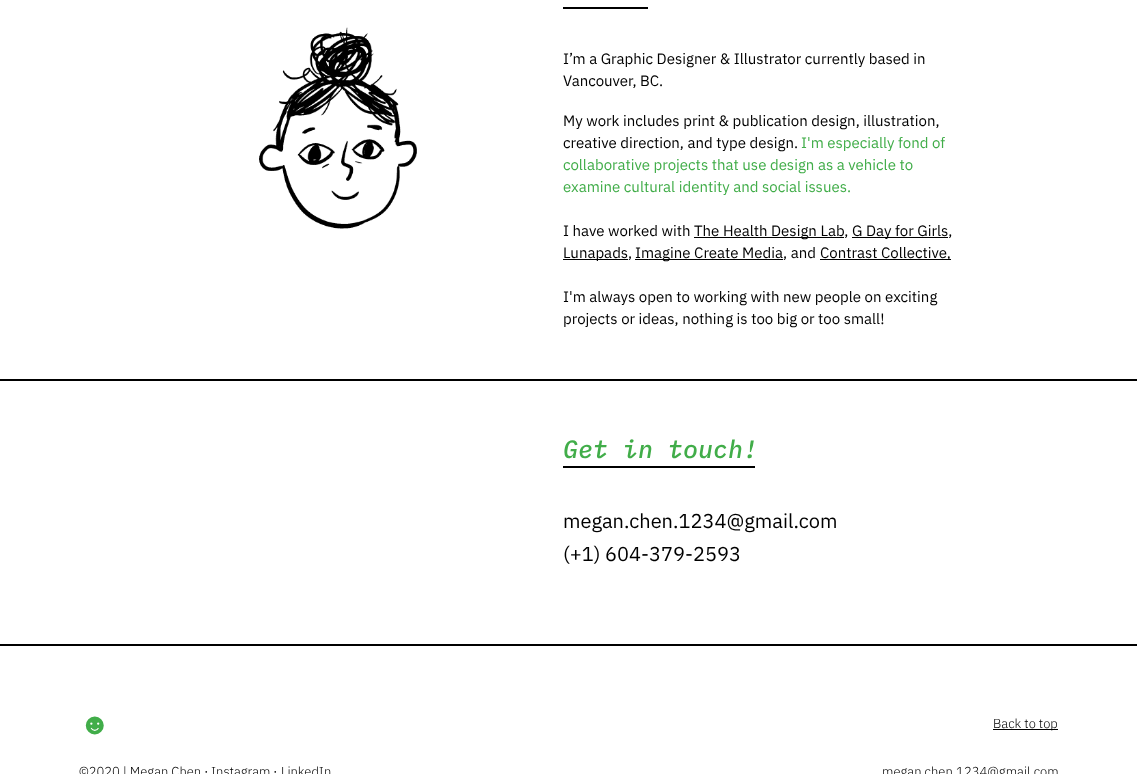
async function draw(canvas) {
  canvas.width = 1137
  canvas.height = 774
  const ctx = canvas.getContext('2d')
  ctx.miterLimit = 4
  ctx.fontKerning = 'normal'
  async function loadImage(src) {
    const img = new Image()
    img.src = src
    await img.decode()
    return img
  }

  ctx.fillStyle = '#fff'
  ctx.fillRect(0, 0, 1137, 774)
  ctx.fillStyle = '#000'
  ctx.fillRect(563, 7, 85, 2)
  ctx.drawImage(await loadImage('image0.png'), 259, 27, 158, 202)
  ctx.font = '15px IBM Plex Sans'
  ctx.fillText('I’m a Graphic Designer & Illustrator currently based in', 563, 64)
  ctx.fillText('Vancouver, BC.', 563, 86)
  ctx.fillText('My work includes print & publication design, illustration,', 563, 126)
  ctx.fillText('creative direction, and type design.', 563, 148)
  ctx.fillStyle = '#41ad49'
  ctx.fillText('I\'m especially fond of', 801, 148)
  ctx.fillText('collaborative projects that use design as a vehicle to', 563, 170)
  ctx.fillText('examine cultural identity and social issues.', 563, 192)
  ctx.fillStyle = '#000'
  ctx.fillText('I have worked with', 563, 236)
  ctx.fillRect(694, 237, 150, 1)
  ctx.fillText('The Health Design Lab,', 694, 236)
  ctx.fillRect(852, 237, 96, 1)
  ctx.fillText('G Day for Girls,', 852, 236)
  ctx.fillRect(563, 259, 65, 1)
  ctx.fillText('Lunapads,', 563, 258)
  ctx.fillRect(635, 259, 148, 1)
  ctx.fillText('Imagine Create Media, and', 635, 258)
  ctx.fillRect(820, 259, 131, 1)
  ctx.fillText('Contrast Collective,', 820, 258)
  ctx.fillText('I\'m always open to working with new people on exciting', 563, 302)
  ctx.fillText('projects or ideas, nothing is too big or too small!', 563, 324)
  ctx.fillRect(0, 379, 1137, 2)
  ctx.font = 'italic 500 25px IBM Plex Mono'
  ctx.fillStyle = '#41ad49'
  ctx.fillText('Get in touch!', 563, 458)
  ctx.fillStyle = '#000'
  ctx.fillRect(563, 466, 192, 2)
  ctx.font = '20px IBM Plex Sans'
  ctx.fillText('megan.chen.1234@gmail.com', 563, 528)
  ctx.fillText('(+1) 604-379-2593', 563, 561)
  ctx.fillRect(0, 644, 1137, 2)
  ctx.font = '30px Liberation Serif'
  ctx.fillStyle = '#41ad49'
  ctx.fillText('☻', 79, 734)
  ctx.fillStyle = '#000'
  ctx.fillRect(993, 729, 65, 1)
  ctx.font = '300 13px IBM Plex Sans'
  ctx.fillText('Back to top', 993, 728)
  ctx.fillText('©2020 | Megan Chen', 79, 776)
  ctx.font = 'bold 13px IBM Plex Sans'
  ctx.fillText('·', 204, 776)
  ctx.font = '300 13px IBM Plex Sans'
  ctx.fillText('Instagram', 211, 776)
  ctx.font = 'bold 13px IBM Plex Sans'
  ctx.fillText('·', 273, 776)
  ctx.font = '300 13px IBM Plex Sans'
  ctx.fillText('LinkedIn', 281, 776)
  ctx.fillText('megan.chen.1234@gmail.com', 882, 776)
}

draw(document.querySelector('canvas'))
